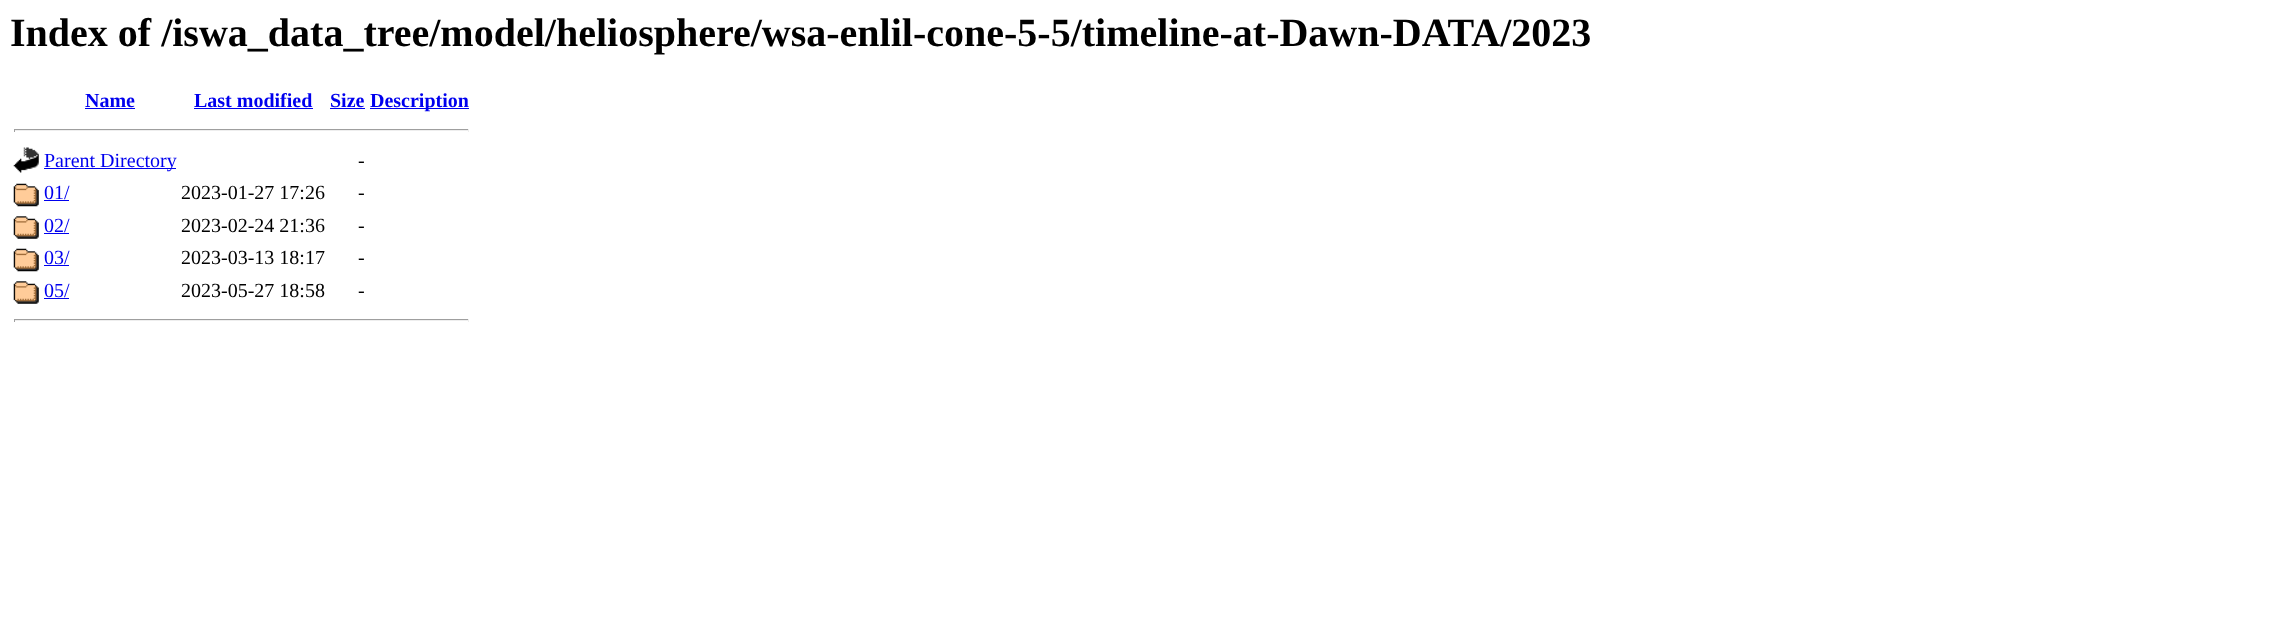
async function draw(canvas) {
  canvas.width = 2291
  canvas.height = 630
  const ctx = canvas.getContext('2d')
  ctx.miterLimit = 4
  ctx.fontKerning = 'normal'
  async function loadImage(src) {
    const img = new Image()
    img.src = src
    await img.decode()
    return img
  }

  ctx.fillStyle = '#fff'
  ctx.fillRect(0, 0, 2291, 630)
  ctx.font = 'bold 40px Liberation Serif'
  ctx.fillStyle = '#000'
  ctx.fillText('Index of /iswa_data_tree/model/heliosphere/wsa-enlil-cone-5-5/timeline-at-Dawn-DATA/2023', 10, 46)
  ctx.font = 'bold 20px Liberation Serif'
  ctx.fillStyle = '#00e'
  ctx.fillText('Name', 85, 107)
  ctx.fillRect(85, 108, 50, 1)
  ctx.fillText('Last modified', 194, 107)
  ctx.fillRect(194, 108, 119, 1)
  ctx.fillText('Size', 330, 107)
  ctx.fillRect(330, 108, 35, 1)
  ctx.fillRect(370, 108, 99, 1)
  ctx.fillText('Description', 370, 107)
  ctx.fillStyle = '#9f9f9f'
  ctx.fillRect(14, 129, 455, 1)
  ctx.fillStyle = '#eee'
  ctx.fillRect(468, 129, 1, 3)
  ctx.fillRect(14, 130, 455, 1)
  ctx.fillStyle = '#9f9f9f'
  ctx.fillRect(14, 129, 1, 3)
  ctx.drawImage(await loadImage('image0.png'), 13, 147, 26, 26)
  ctx.fillStyle = '#00e'
  ctx.fillRect(44, 168, 132, 1)
  ctx.font = '20px Liberation Serif'
  ctx.fillText('Parent Directory', 44, 167)
  ctx.fillStyle = '#000'
  ctx.fillText('-', 358, 167)
  ctx.drawImage(await loadImage('image1.png'), 13, 183, 26, 24)
  ctx.fillStyle = '#00e'
  ctx.fillText('01/', 44, 199)
  ctx.fillRect(44, 200, 25, 1)
  ctx.fillStyle = '#000'
  ctx.fillText('2023-01-27 17:26', 181, 199)
  ctx.fillText('-', 358, 199)
  ctx.drawImage(await loadImage('image2.png'), 13, 216, 26, 23)
  ctx.fillStyle = '#00e'
  ctx.fillText('02/', 44, 232)
  ctx.fillRect(44, 233, 25, 1)
  ctx.fillStyle = '#000'
  ctx.fillText('2023-02-24 21:36', 181, 232)
  ctx.fillText('-', 358, 232)
  ctx.drawImage(await loadImage('image1.png'), 13, 248, 26, 24)
  ctx.fillStyle = '#00e'
  ctx.fillText('03/', 44, 264)
  ctx.fillRect(44, 265, 25, 1)
  ctx.fillStyle = '#000'
  ctx.fillText('2023-03-13 18:17', 181, 264)
  ctx.fillText('-', 358, 264)
  ctx.drawImage(await loadImage('image3.png'), 13, 281, 26, 23)
  ctx.fillStyle = '#00e'
  ctx.fillText('05/', 44, 297)
  ctx.fillRect(44, 298, 25, 1)
  ctx.fillStyle = '#000'
  ctx.fillText('2023-05-27 18:58', 181, 297)
  ctx.fillText('-', 358, 297)
  ctx.fillStyle = '#9f9f9f'
  ctx.fillRect(14, 319, 455, 1)
  ctx.fillStyle = '#eee'
  ctx.fillRect(468, 319, 1, 3)
  ctx.fillRect(14, 320, 455, 1)
  ctx.fillStyle = '#9f9f9f'
  ctx.fillRect(14, 319, 1, 3)
}

draw(document.querySelector('canvas'))
